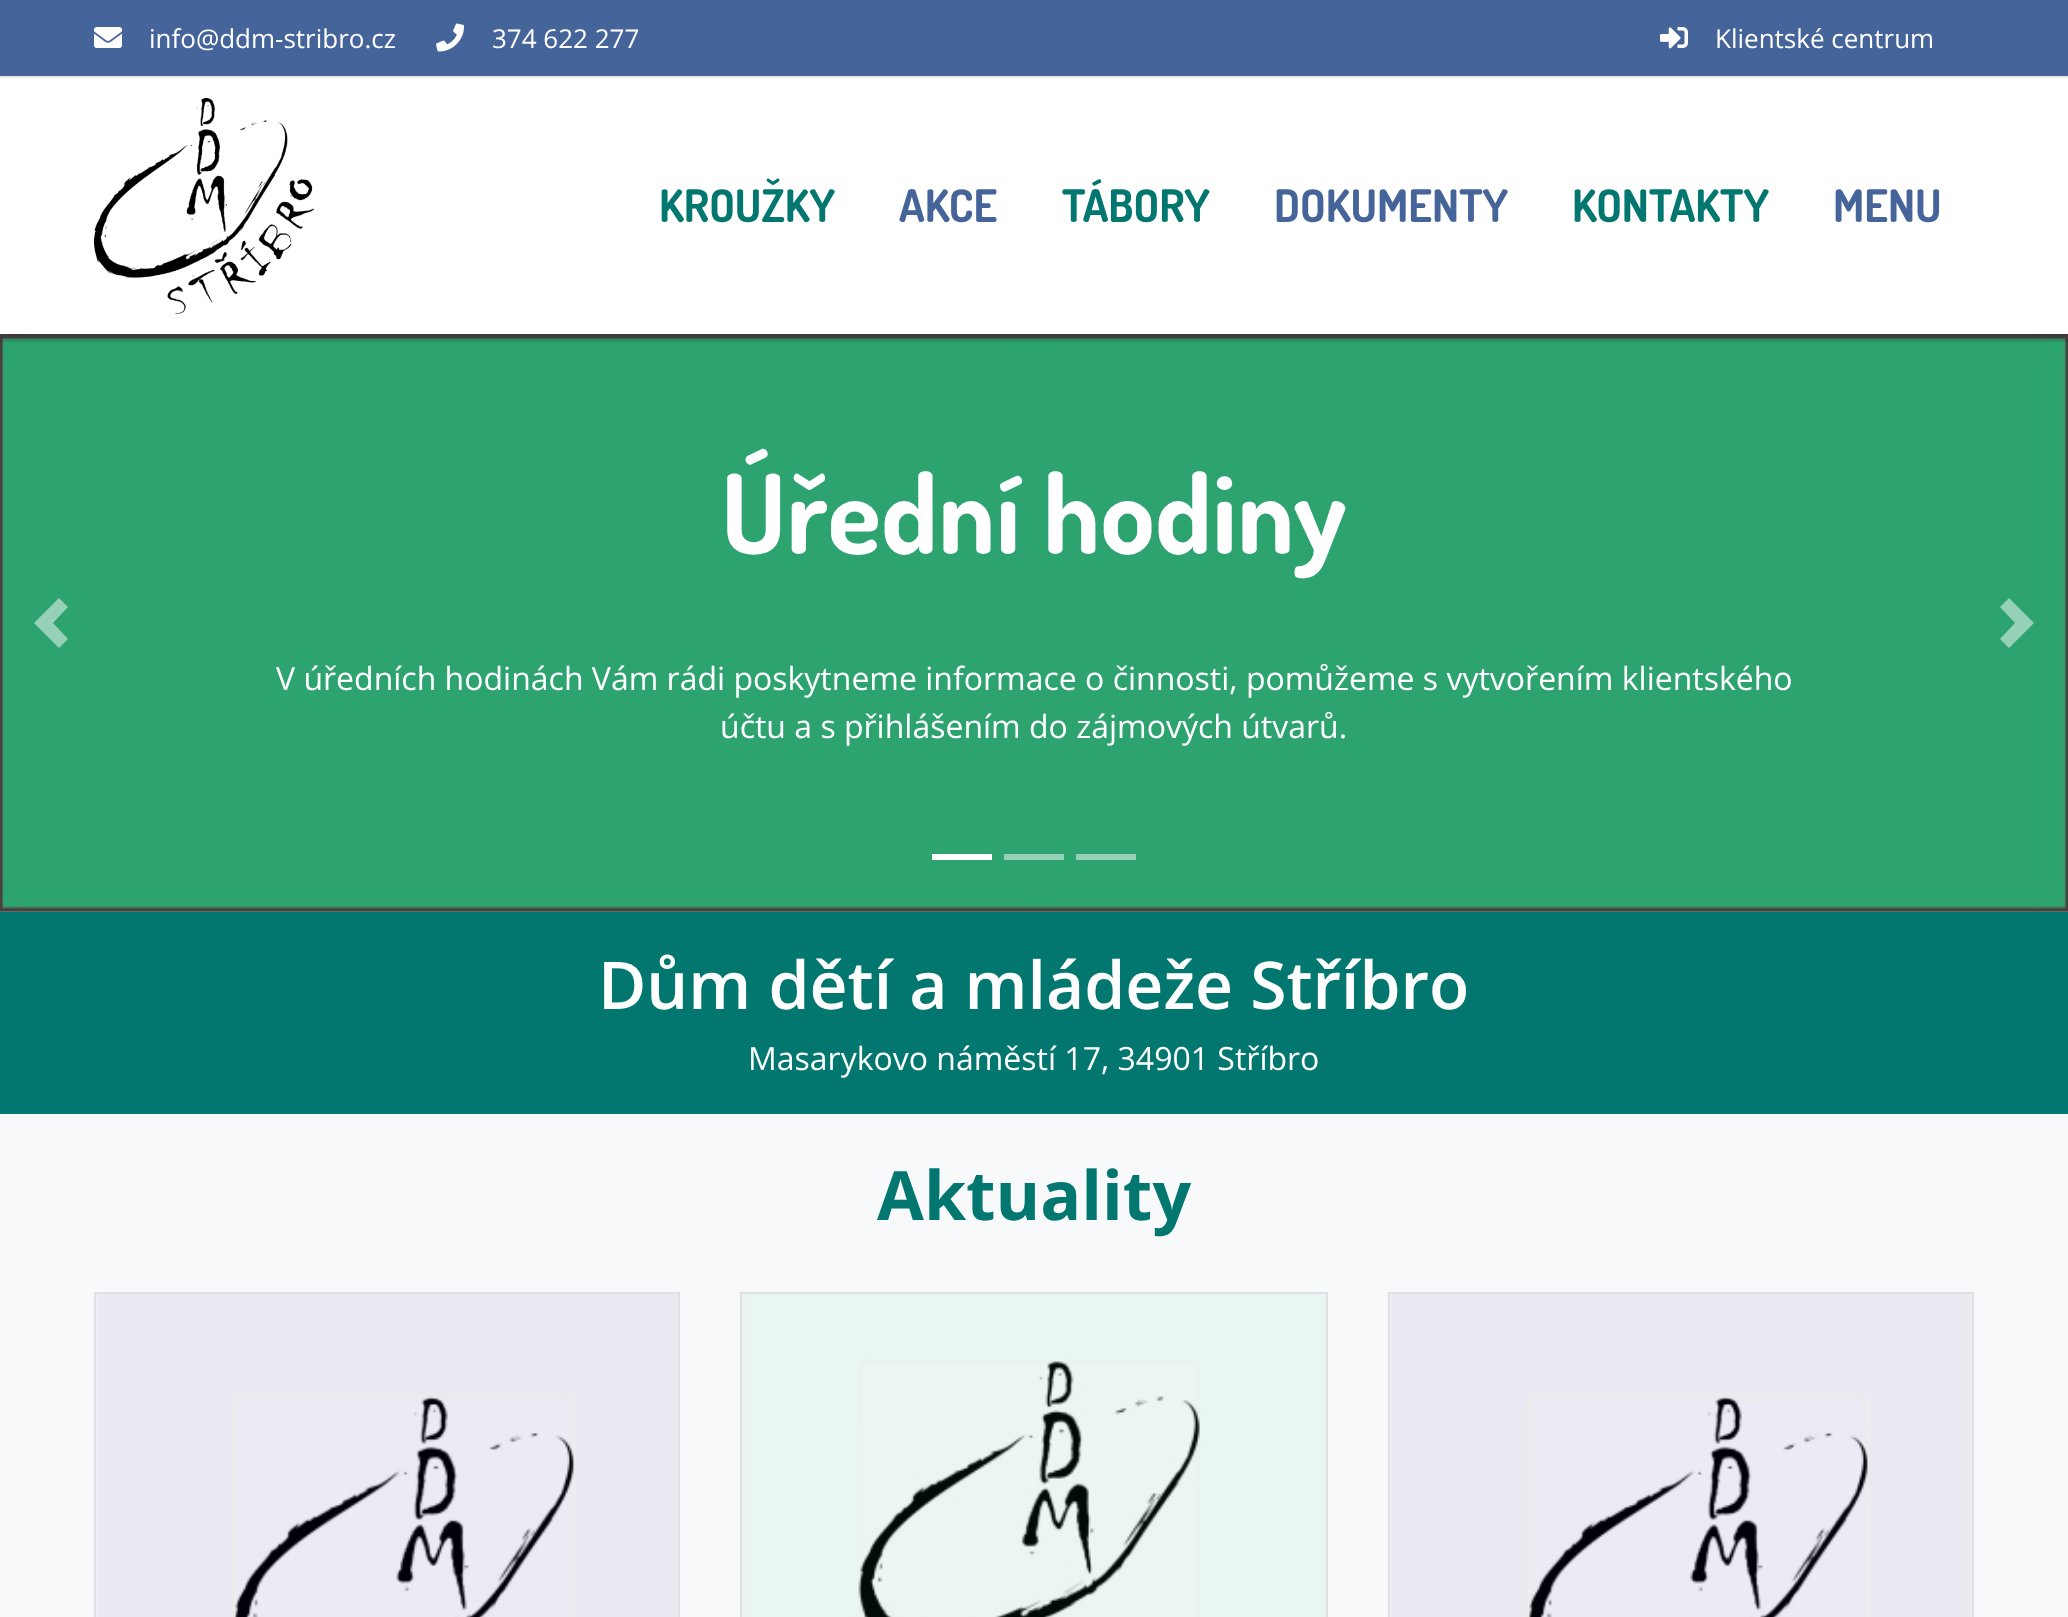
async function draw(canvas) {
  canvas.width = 2068
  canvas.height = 1617
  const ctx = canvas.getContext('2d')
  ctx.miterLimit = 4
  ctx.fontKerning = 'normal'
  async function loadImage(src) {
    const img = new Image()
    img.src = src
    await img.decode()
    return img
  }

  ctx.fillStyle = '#f8f9fa'
  ctx.fillRect(0, 0, 2068, 1617)
  ctx.fillStyle = '#45649a'
  ctx.fillRect(0, 0, 2068, 76)
  ctx.fillStyle = '#e7e7e7'
  ctx.fillRect(0, 76, 2068, 2)
  ctx.drawImage(await loadImage('image0.png'), 94, 27, 28, 21)
  ctx.font = '26px Open Sans'
  ctx.fillStyle = '#fff'
  ctx.fillText('info@ddm-stribro.cz', 149, 48)
  ctx.drawImage(await loadImage('image1.png'), 436, 23, 29, 29)
  ctx.fillText('374 622 277', 492, 48)
  ctx.drawImage(await loadImage('image2.png'), 1660, 27, 28, 22)
  ctx.fillText('Klientské centrum', 1715, 48)
  ctx.drawImage(await loadImage('image4.png'), 0, 334, 2068, 578)
  ctx.fillStyle = '#0000001a'
  ctx.fillRect(0, 334, 2068, 8)
  ctx.fillStyle = '#fff'
  ctx.fillRect(0, 78, 2068, 256)
  ctx.drawImage(await loadImage('image3.png'), 94, 98, 220, 216)
  ctx.font = 'bold 44.75px Dosis'
  ctx.fillStyle = '#017770'
  ctx.fillText('KROUŽKY', 659, 222)
  ctx.fillStyle = '#45649a'
  ctx.fillText('AKCE', 899, 222)
  ctx.fillStyle = '#017770'
  ctx.fillText('TÁBORY', 1062, 222)
  ctx.fillStyle = '#45649a'
  ctx.fillText('DOKUMENTY', 1274, 222)
  ctx.fillStyle = '#017770'
  ctx.fillText('KONTAKTY', 1572, 222)
  ctx.fillStyle = '#45649a'
  ctx.fillText('MENU', 1833, 222)
  ctx.fillStyle = '#96d1b7'
  ctx.beginPath()
  ctx.moveTo(59, 598)
  ctx.lineTo(34, 623)
  ctx.lineTo(59, 648)
  ctx.lineTo(68, 639)
  ctx.lineTo(53, 623)
  ctx.lineTo(68, 607)
  ctx.closePath()
  ctx.fill()
  ctx.font = 'bold 110px Dosis'
  ctx.fillStyle = '#fff'
  ctx.fillText('Úřední hodiny', 721, 554)
  ctx.font = '32px Open Sans'
  ctx.fillText('V úředních hodinách Vám rádi poskytneme informace o činnosti, pomůžeme s vytvořením klientského', 276, 690)
  ctx.fillText('účtu a s přihlášením do zájmových útvarů.', 720, 738)
  ctx.fillStyle = '#96d1b7'
  ctx.beginPath()
  ctx.moveTo(2009, 598)
  ctx.lineTo(2000, 607)
  ctx.lineTo(2015, 623)
  ctx.lineTo(2000, 639)
  ctx.lineTo(2009, 648)
  ctx.lineTo(2034, 623)
  ctx.closePath()
  ctx.fill()
  ctx.fillStyle = '#fff'
  ctx.fillRect(932, 854, 60, 6)
  ctx.fillStyle = '#96d1b7'
  ctx.fillRect(1004, 854, 60, 6)
  ctx.fillRect(1076, 854, 60, 6)
  ctx.fillStyle = '#017770'
  ctx.fillRect(0, 912, 2068, 202)
  ctx.font = '600 66px Open Sans'
  ctx.fillStyle = '#fff'
  ctx.fillText('Dům dětí a mládeže Stříbro', 598, 1009)
  ctx.font = '32px Open Sans'
  ctx.fillText('Masarykovo náměstí 17, 34901 Stříbro', 748, 1070)
  ctx.font = 'bold 68px Open Sans'
  ctx.fillStyle = '#017770'
  ctx.fillText('Aktuality', 877, 1220)
  ctx.strokeStyle = '#dee2e6'
  ctx.lineWidth = 2
  ctx.strokeRect(95, 1293, 584, 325)
  ctx.drawImage(await loadImage('image5.png'), 96, 1294, 582, 323)
  ctx.strokeRect(741, 1293, 586, 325)
  ctx.drawImage(await loadImage('image6.png'), 742, 1294, 584, 323)
  ctx.strokeRect(1389, 1293, 584, 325)
  ctx.drawImage(await loadImage('image5.png'), 1390, 1294, 582, 323)
}

draw(document.querySelector('canvas'))
